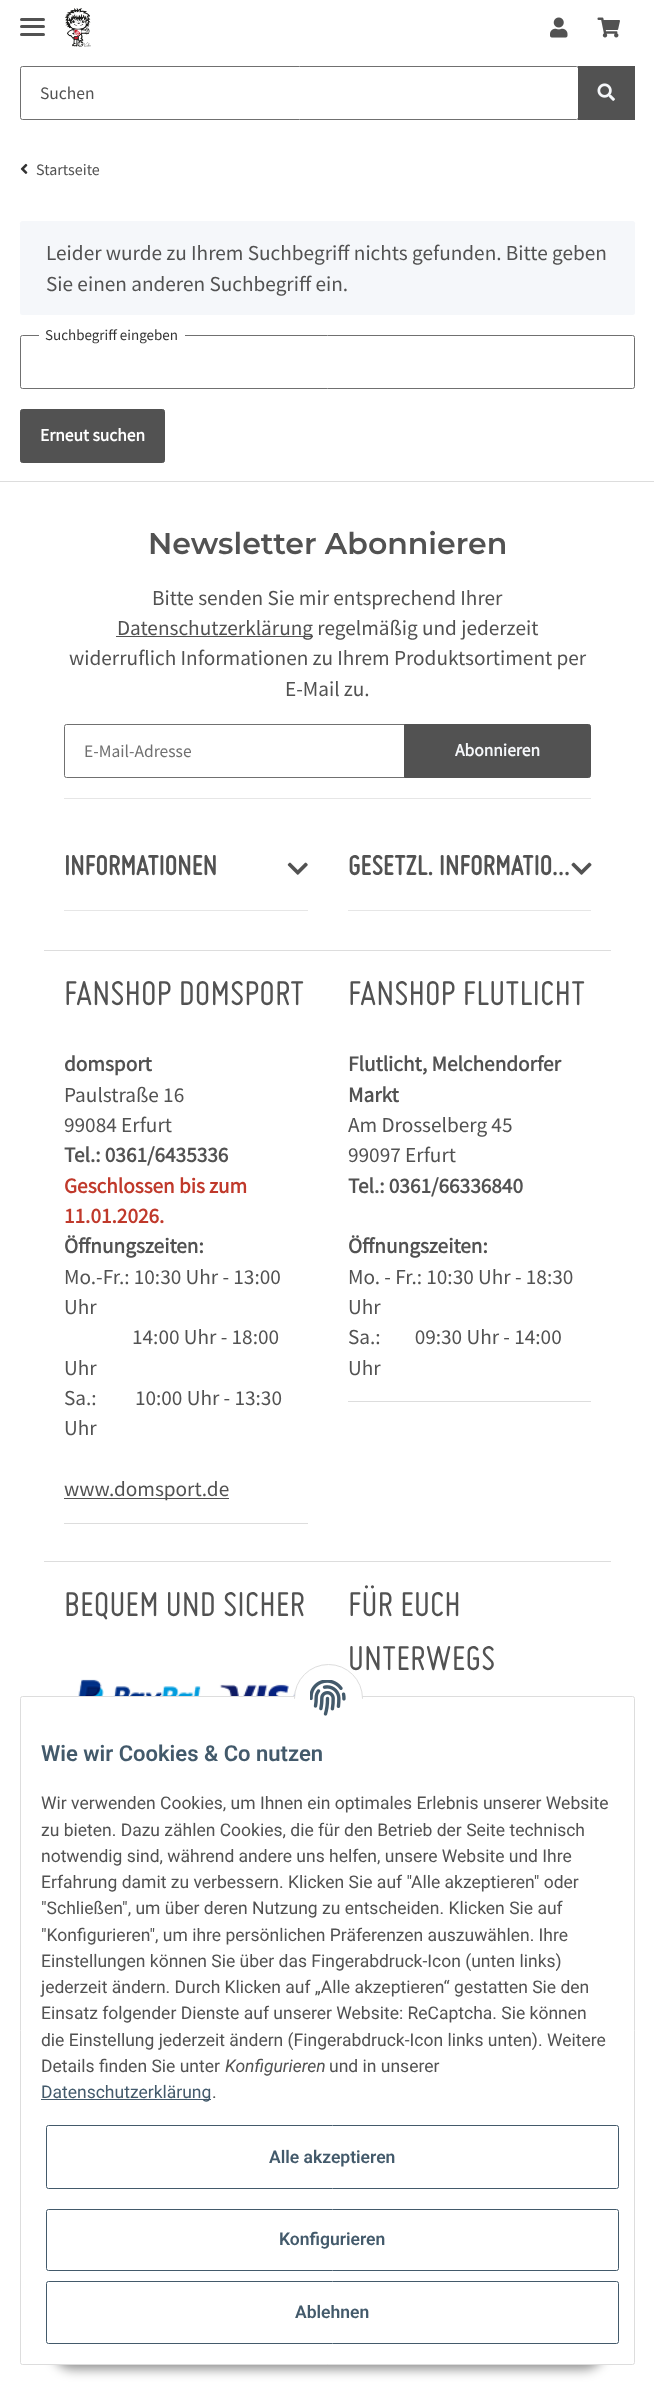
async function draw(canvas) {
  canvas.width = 654
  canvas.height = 2405
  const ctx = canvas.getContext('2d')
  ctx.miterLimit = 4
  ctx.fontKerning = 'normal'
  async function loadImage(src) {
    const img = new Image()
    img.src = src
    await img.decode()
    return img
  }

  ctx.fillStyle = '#fff'
  ctx.fillRect(0, 0, 654, 2405)
  ctx.fillStyle = '#525252'
  ctx.beginPath()
  ctx.roundRect(20, 25, 25, 3, 1.5)
  ctx.fill()
  ctx.beginPath()
  ctx.roundRect(20, 18, 25, 3, 1.5)
  ctx.fill()
  ctx.beginPath()
  ctx.roundRect(20, 33, 25, 3, 1.5)
  ctx.fill()
  ctx.drawImage(await loadImage('image0.png'), 65, 8, 26, 39)
  ctx.drawImage(await loadImage('image1.png'), 550, 17, 18, 21)
  ctx.drawImage(await loadImage('image2.png'), 597, 17, 23, 21)
  ctx.beginPath()
  ctx.roundRect(20.5, 66.5, 558, 53, 2)
  ctx.strokeStyle = '#707070'
  ctx.stroke()
  ctx.font = '17.5px Source Sans Pro'
  ctx.fillText('Suchen', 40, 99)
  ctx.fillRect(578, 66, 57, 54)
  ctx.drawImage(await loadImage('image3.png'), 597, 83, 18, 18)
  ctx.drawImage(await loadImage('image4.png'), 20, 163, 8, 11)
  ctx.font = '16px Source Sans Pro'
  ctx.fillText('Startseite', 36, 175)
  ctx.fillStyle = '#f5f7fa'
  ctx.beginPath()
  ctx.roundRect(20, 221, 615, 94, 2.5)
  ctx.fill()
  ctx.font = '21.25px Source Sans Pro'
  ctx.fillStyle = '#525252'
  ctx.fillText('Leider wurde zu Ihrem Suchbegriff nichts gefunden. Bitte geben', 46, 260)
  ctx.fillText('Sie einen anderen Suchbegriff ein.', 46, 291)
  ctx.beginPath()
  ctx.roundRect(20.5, 335.5, 614, 53, 2)
  ctx.stroke()
  ctx.fillStyle = '#fff'
  ctx.fillRect(39, 335, 146, 1)
  ctx.font = '15px Source Sans Pro'
  ctx.fillStyle = '#333'
  ctx.fillText('Suchbegriff eingeben', 45, 340)
  ctx.fillStyle = '#525252'
  ctx.beginPath()
  ctx.roundRect(20.5, 409.5, 144, 53, 2)
  ctx.fill()
  ctx.strokeStyle = '#525252'
  ctx.stroke()
  ctx.font = 'bold 17.5px Source Sans Pro'
  ctx.fillStyle = '#fff'
  ctx.fillText('Erneut suchen', 40, 441)
  ctx.fillStyle = '#ddd'
  ctx.fillRect(0, 481, 654, 1)
  ctx.font = '600 30px Montserrat'
  ctx.fillStyle = '#525252'
  ctx.fillText('Newsletter Abonnieren', 148, 554)
  ctx.font = '21.25px Source Sans Pro'
  ctx.fillText('Bitte senden Sie mir entsprechend Ihrer', 152, 605)
  ctx.fillRect(116, 636, 197, 1)
  ctx.fillText('Datenschutzerklärung regelmäßig und jederzeit', 117, 635)
  ctx.fillText('widerruflich Informationen zu Ihrem Produktsortiment per', 69, 665)
  ctx.fillText('E-Mail zu.', 285, 696)
  ctx.beginPath()
  ctx.roundRect(64.5, 724.5, 340, 53, [2, 0, 0, 2])
  ctx.strokeStyle = '#707070'
  ctx.stroke()
  ctx.font = '17.5px Source Sans Pro'
  ctx.fillStyle = '#707070'
  ctx.fillText('E-Mail-Adresse', 84, 757)
  ctx.fillStyle = '#525252'
  ctx.beginPath()
  ctx.roundRect(404.5, 724.5, 186, 53, [0, 2, 2, 0])
  ctx.fill()
  ctx.strokeStyle = '#525252'
  ctx.stroke()
  ctx.font = 'bold 17.5px Source Sans Pro'
  ctx.fillStyle = '#f5f7fa'
  ctx.fillText('Abonnieren', 455, 756)
  ctx.fillStyle = '#e6e6e6'
  ctx.fillRect(64, 798, 527, 1)
  ctx.fillStyle = '#ddd'
  ctx.fillRect(44, 950, 567, 1)
  ctx.font = 'bold 30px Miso'
  ctx.fillStyle = '#525252'
  ctx.fillText('INFORMATIONEN', 64, 875)
  ctx.drawImage(await loadImage('image5.png'), 287, 862, 21, 13)
  ctx.fillStyle = '#e6e6e6'
  ctx.fillRect(64, 910, 244, 1)
  ctx.fillStyle = '#525252'
  ctx.fillText('GESETZL. INFORMATIO…', 348, 875)
  ctx.drawImage(await loadImage('image6.png'), 571, 862, 21, 13)
  ctx.fillStyle = '#e6e6e6'
  ctx.fillRect(348, 910, 243, 1)
  ctx.fillStyle = '#ddd'
  ctx.fillRect(44, 1561, 567, 1)
  ctx.fillRect(64, 1523, 244, 1)
  ctx.font = '37.5px Miso'
  ctx.fillStyle = '#525252'
  ctx.fillText('FANSHOP DOMSPORT', 64, 1005)
  ctx.font = 'bold 21.25px Source Sans Pro'
  ctx.fillText('domsport', 64, 1071)
  ctx.font = '21.25px Source Sans Pro'
  ctx.fillText('Paulstraße 16', 64, 1102)
  ctx.fillText('99084 Erfurt', 64, 1132)
  ctx.font = 'bold 21.25px Source Sans Pro'
  ctx.fillText('Tel.: 0361/6435336', 64, 1162)
  ctx.fillStyle = '#c0392b'
  ctx.fillText('Geschlossen bis zum', 64, 1193)
  ctx.fillText('11.01.2026.', 64, 1223)
  ctx.fillStyle = '#525252'
  ctx.fillText('Öffnungszeiten:', 64, 1253)
  ctx.font = '21.25px Source Sans Pro'
  ctx.fillText('Mo.-Fr.: 10:30 Uhr - 13:00', 64, 1284)
  ctx.fillText('Uhr', 64, 1314)
  ctx.fillText('14:00 Uhr - 18:00', 132, 1344)
  ctx.fillText('Uhr', 64, 1375)
  ctx.fillText('Sa.:         10:00 Uhr - 13:30', 64, 1405)
  ctx.fillText('Uhr', 64, 1435)
  ctx.fillRect(64, 1498, 165, 1)
  ctx.fillText('www.domsport.de', 64, 1496)
  ctx.fillStyle = '#ddd'
  ctx.fillRect(348, 1401, 243, 1)
  ctx.font = '37.5px Miso'
  ctx.fillStyle = '#525252'
  ctx.fillText('FANSHOP FLUTLICHT', 348, 1005)
  ctx.font = 'bold 21.25px Source Sans Pro'
  ctx.fillText('Flutlicht, Melchendorfer', 348, 1071)
  ctx.fillText('Markt', 348, 1102)
  ctx.font = '21.25px Source Sans Pro'
  ctx.fillText('Am Drosselberg 45', 348, 1132)
  ctx.fillText('99097 Erfurt', 348, 1162)
  ctx.font = 'bold 21.25px Source Sans Pro'
  ctx.fillText('Tel.: 0361/66336840', 348, 1193)
  ctx.fillText('Öffnungszeiten:', 348, 1253)
  ctx.font = '21.25px Source Sans Pro'
  ctx.fillText('Mo. - Fr.: 10:30 Uhr - 18:30', 348, 1284)
  ctx.fillText('Uhr', 348, 1314)
  ctx.fillText('Sa.:        09:30 Uhr - 14:00', 348, 1344)
  ctx.fillText('Uhr', 348, 1375)
  ctx.font = '37.5px Miso'
  ctx.fillText('BEQUEM UND SICHER', 64, 1616)
  ctx.drawImage(await loadImage('image7.png'), 77, 1679, 223, 17)
  ctx.fillText('FÜR EUCH', 348, 1616)
  ctx.fillText('UNTERWEGS', 348, 1670)
  ctx.fillStyle = '#00000073'
  ctx.filter = 'blur(6px)'
  ctx.beginPath()
  ctx.roundRect(53, 2329, 551, 40, 20)
  ctx.fill()
  ctx.filter = 'none'
  ctx.fillStyle = '#fff'
  ctx.beginPath()
  ctx.roundRect(20.5, 1696.5, 614, 668, 2)
  ctx.fill()
  ctx.strokeStyle = '#ddd'
  ctx.stroke()
  ctx.beginPath()
  ctx.arc(328.5, 1698.5, 34, 0, 2 * Math.PI)
  ctx.fill()
  ctx.stroke()
  ctx.fillRect(294, 1699, 69, 34)
  ctx.drawImage(await loadImage('image8.png'), 310, 1680, 36, 36)
  ctx.font = '600 22px Roboto'
  ctx.fillStyle = '#435a6b'
  ctx.fillText('Wie wir Cookies & Co nutzen', 41, 1761)
  ctx.font = '17.5px Roboto'
  ctx.fillStyle = '#525252'
  ctx.fillText('Wir verwenden Cookies, um Ihnen ein optimales Erlebnis unserer Website', 41, 1809)
  ctx.fillText('zu bieten. Dazu zählen Cookies, die für den Betrieb der Seite technisch', 41, 1836)
  ctx.fillText('notwendig sind, während andere uns helfen, unsere Website und Ihre', 41, 1862)
  ctx.fillText('Erfahrung damit zu verbessern. Klicken Sie auf "Alle akzeptieren" oder', 41, 1888)
  ctx.fillText('"Schließen", um über deren Nutzung zu entscheiden. Klicken Sie auf', 41, 1914)
  ctx.fillText('"Konfigurieren", um ihre persönlichen Präferenzen auszuwählen. Ihre', 41, 1941)
  ctx.fillText('Einstellungen können Sie über das Fingerabdruck-Icon (unten links)', 41, 1967)
  ctx.fillText('jederzeit ändern. Durch Klicken auf „Alle akzeptieren“ gestatten Sie den', 41, 1993)
  ctx.fillText('Einsatz folgender Dienste auf unserer Website: ReCaptcha. Sie können', 41, 2019)
  ctx.fillText('die Einstellung jederzeit ändern (Fingerabdruck-Icon links unten). Weitere', 41, 2046)
  ctx.fillText('Details finden Sie unter', 41, 2072)
  ctx.font = 'italic 17.5px Roboto'
  ctx.fillText('Konfigurieren', 225, 2072)
  ctx.font = '17.5px Roboto'
  ctx.fillText('und in unserer', 329, 2072)
  ctx.fillStyle = '#435a6b'
  ctx.fillRect(41, 2099, 170, 1)
  ctx.fillText('Datenschutzerklärung', 41, 2098)
  ctx.fillStyle = '#525252'
  ctx.fillText('.', 212, 2098)
  ctx.beginPath()
  ctx.roundRect(46.5, 2125.5, 572, 63, 2)
  ctx.strokeStyle = '#435a6b'
  ctx.stroke()
  ctx.font = '600 17.5px Roboto'
  ctx.fillStyle = '#435a6b'
  ctx.fillText('Alle akzeptieren', 269, 2163)
  ctx.beginPath()
  ctx.roundRect(46.5, 2209.5, 572, 61, 2)
  ctx.stroke()
  ctx.fillText('Konfigurieren', 279, 2245)
  ctx.beginPath()
  ctx.roundRect(46.5, 2281.5, 572, 62, 2)
  ctx.stroke()
  ctx.fillText('Ablehnen', 295, 2318)
}

draw(document.querySelector('canvas'))
